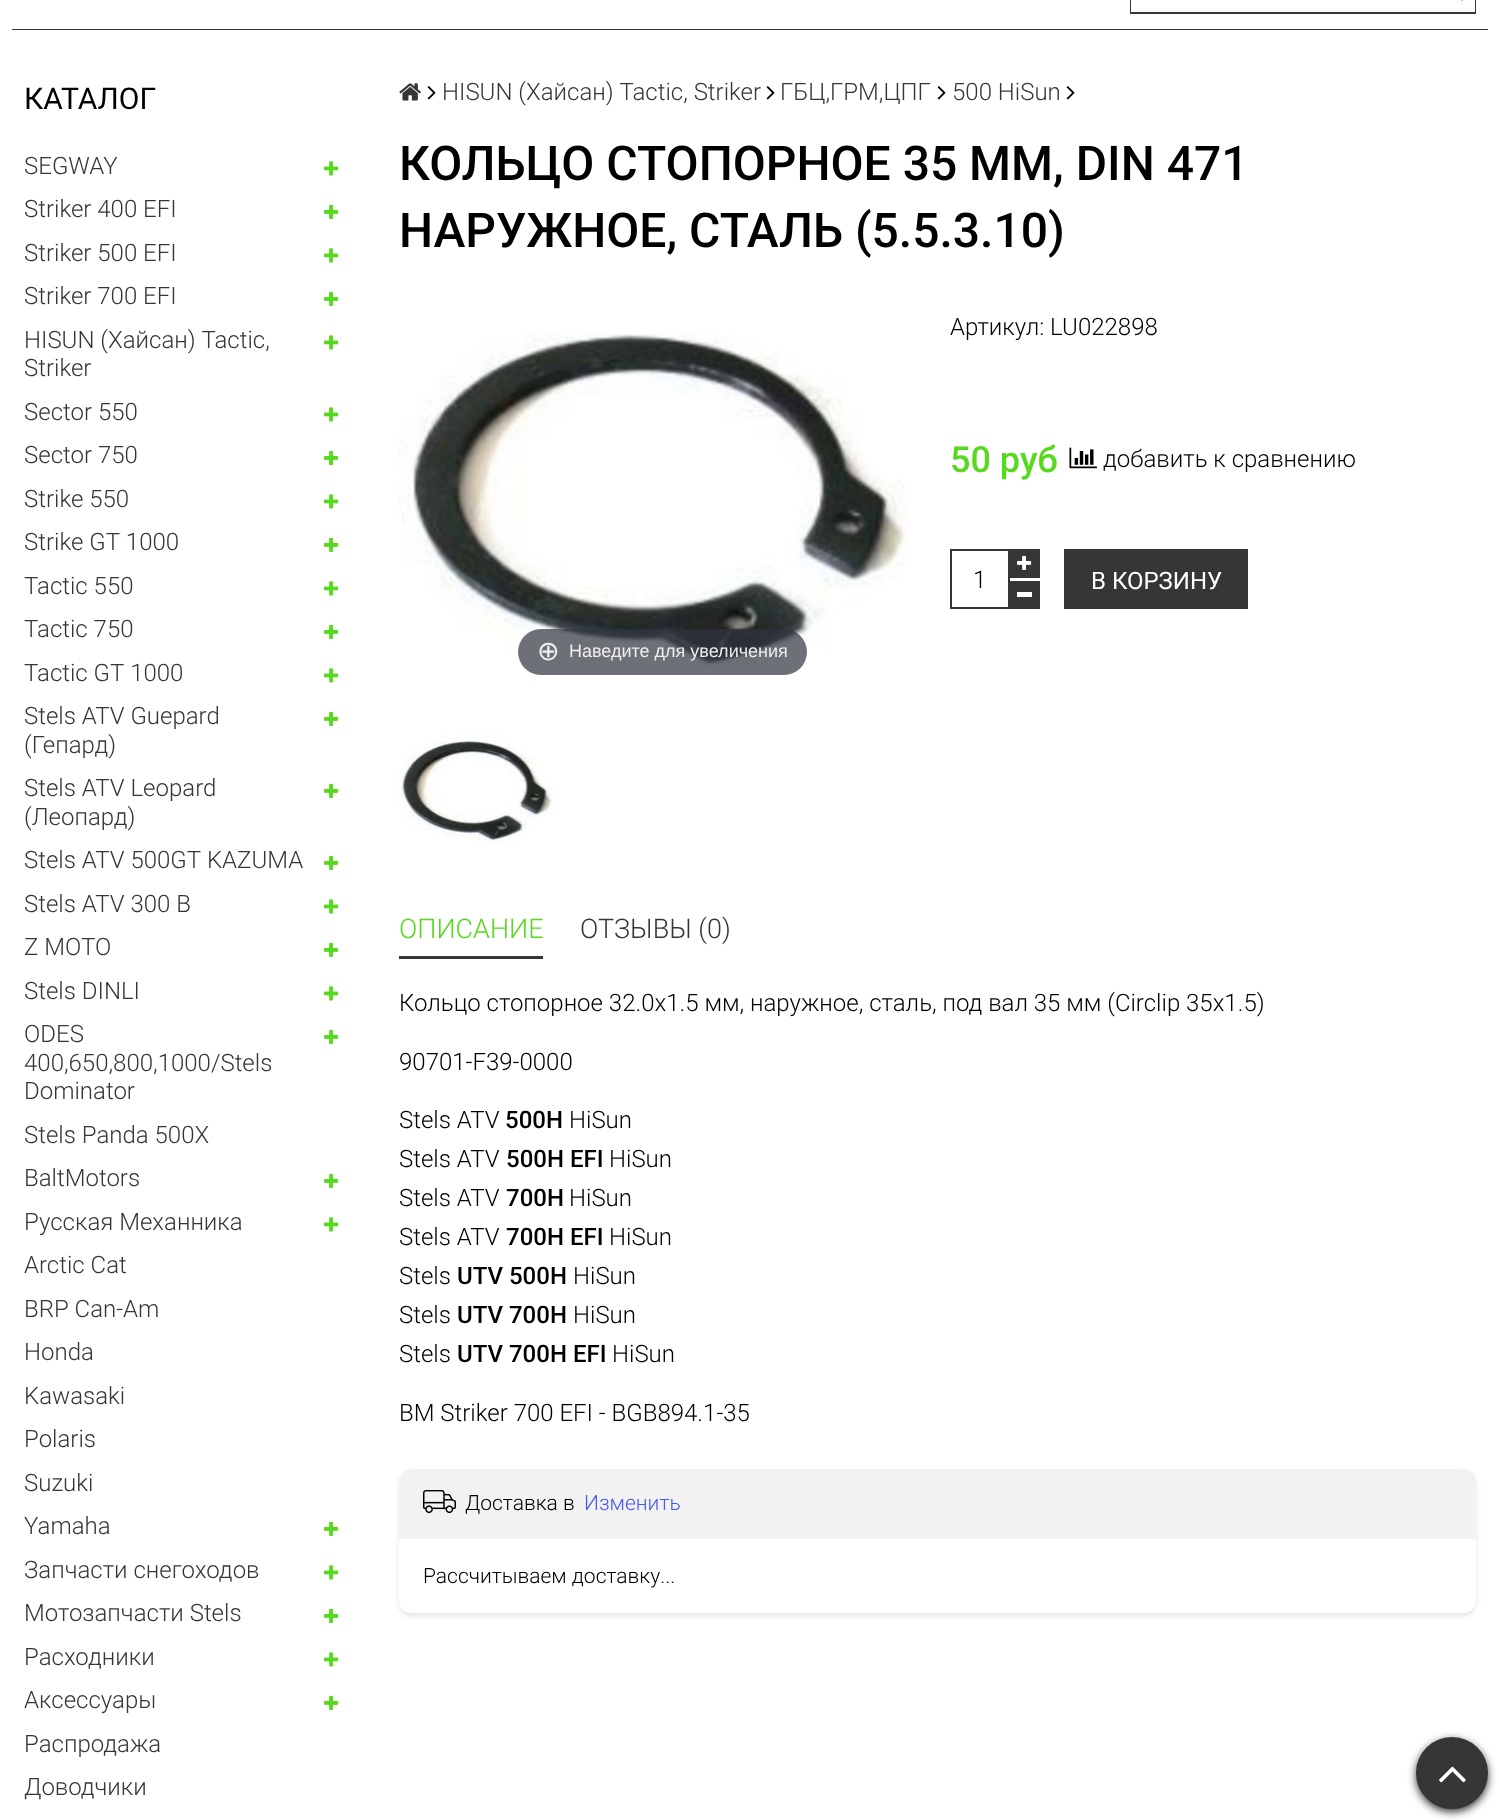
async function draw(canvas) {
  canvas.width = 1499
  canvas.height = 1820
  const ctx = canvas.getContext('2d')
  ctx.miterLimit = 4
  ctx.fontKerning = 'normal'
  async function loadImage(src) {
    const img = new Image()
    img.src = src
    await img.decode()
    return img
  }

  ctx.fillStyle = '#fff'
  ctx.fillRect(0, 0, 1499, 1820)
  ctx.fillStyle = '#363636'
  ctx.fillRect(12, 29, 1476, 1)
  ctx.strokeStyle = '#363636'
  ctx.lineWidth = 2
  ctx.strokeRect(1131, -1, 344, 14)
  ctx.fillStyle = '#fff'
  ctx.fillRect(1131, 0, 1, 12)
  ctx.fillRect(1474, 0, 1, 12)
  ctx.drawImage(await loadImage('image0.png'), 1461, 0, 2, 1)
  ctx.font = '30px Roboto'
  ctx.fillStyle = '#000'
  ctx.fillText('КАТАЛОГ', 24, 109)
  ctx.font = '300 24px Roboto'
  ctx.fillStyle = '#363636'
  ctx.fillText('SEGWAY', 24, 174)
  ctx.drawImage(await loadImage('image1.png'), 324, 161, 15, 15)
  ctx.fillText('Striker 400 EFI', 24, 217)
  ctx.drawImage(await loadImage('image2.png'), 324, 204, 15, 15)
  ctx.fillText('Striker 500 EFI', 24, 261)
  ctx.drawImage(await loadImage('image1.png'), 324, 248, 15, 15)
  ctx.fillText('Striker 700 EFI', 24, 304)
  ctx.drawImage(await loadImage('image2.png'), 324, 291, 15, 15)
  ctx.fillText('HISUN (Хайсан) Tactic,', 24, 348)
  ctx.fillText('Striker', 24, 376)
  ctx.drawImage(await loadImage('image1.png'), 324, 335, 15, 15)
  ctx.fillText('Sector 550', 24, 420)
  ctx.drawImage(await loadImage('image1.png'), 324, 407, 15, 15)
  ctx.fillText('Sector 750', 24, 463)
  ctx.drawImage(await loadImage('image2.png'), 324, 450, 15, 15)
  ctx.fillText('Strike 550', 24, 507)
  ctx.drawImage(await loadImage('image1.png'), 324, 494, 15, 15)
  ctx.fillText('Strike GT 1000', 24, 550)
  ctx.drawImage(await loadImage('image2.png'), 324, 537, 15, 15)
  ctx.fillText('Tactic 550', 24, 594)
  ctx.drawImage(await loadImage('image1.png'), 324, 581, 15, 15)
  ctx.fillText('Tactic 750', 24, 637)
  ctx.drawImage(await loadImage('image2.png'), 324, 624, 15, 15)
  ctx.fillText('Tactic GT 1000', 24, 681)
  ctx.drawImage(await loadImage('image1.png'), 324, 668, 15, 15)
  ctx.fillText('Stels ATV Guepard', 24, 724)
  ctx.fillText('(Гепард)', 24, 753)
  ctx.drawImage(await loadImage('image2.png'), 324, 711, 15, 15)
  ctx.fillText('Stels ATV Leopard', 24, 796)
  ctx.fillText('(Леопард)', 24, 825)
  ctx.drawImage(await loadImage('image2.png'), 324, 783, 15, 15)
  ctx.fillText('Stels ATV 500GT KAZUMA', 24, 868)
  ctx.drawImage(await loadImage('image2.png'), 324, 855, 15, 15)
  ctx.fillText('Stels ATV 300 B', 24, 912)
  ctx.drawImage(await loadImage('image1.png'), 324, 899, 15, 15)
  ctx.fillText('Z MOTO', 24, 955)
  ctx.drawImage(await loadImage('image2.png'), 324, 942, 15, 15)
  ctx.fillText('Stels DINLI', 24, 999)
  ctx.drawImage(await loadImage('image1.png'), 324, 986, 15, 15)
  ctx.fillText('ODES', 24, 1042)
  ctx.fillText('400,650,800,1000/Stels', 24, 1071)
  ctx.fillText('Dominator', 24, 1099)
  ctx.drawImage(await loadImage('image2.png'), 324, 1029, 15, 15)
  ctx.fillText('Stels Panda 500X', 24, 1143)
  ctx.fillText('BaltMotors', 24, 1186)
  ctx.drawImage(await loadImage('image2.png'), 324, 1173, 15, 15)
  ctx.fillText('Русская Механника', 24, 1230)
  ctx.drawImage(await loadImage('image1.png'), 324, 1217, 15, 15)
  ctx.fillText('Arctic Cat', 24, 1273)
  ctx.fillText('BRP Can-Am', 24, 1317)
  ctx.fillText('Honda', 24, 1360)
  ctx.fillText('Kawasaki', 24, 1404)
  ctx.fillText('Polaris', 24, 1447)
  ctx.fillText('Suzuki', 24, 1491)
  ctx.fillText('Yamaha', 24, 1534)
  ctx.drawImage(await loadImage('image2.png'), 324, 1521, 15, 15)
  ctx.fillText('Запчасти снегоходов', 24, 1578)
  ctx.drawImage(await loadImage('image1.png'), 324, 1565, 15, 15)
  ctx.fillText('Мотозапчасти Stels', 24, 1621)
  ctx.drawImage(await loadImage('image2.png'), 324, 1608, 15, 15)
  ctx.fillText('Расходники', 24, 1665)
  ctx.drawImage(await loadImage('image1.png'), 324, 1652, 15, 15)
  ctx.fillText('Аксессуары', 24, 1708)
  ctx.drawImage(await loadImage('image2.png'), 324, 1695, 15, 15)
  ctx.fillText('Распродажа', 24, 1752)
  ctx.fillText('Доводчики', 24, 1795)
  ctx.drawImage(await loadImage('image3.png'), 399, 83, 22, 18)
  ctx.drawImage(await loadImage('image4.png'), 427, 86, 9, 14)
  ctx.fillText('HISUN (Хайсан) Tactic, Striker', 442, 100)
  ctx.drawImage(await loadImage('image4.png'), 766, 86, 9, 14)
  ctx.fillText('ГБЦ,ГРМ,ЦПГ', 780, 100)
  ctx.drawImage(await loadImage('image4.png'), 937, 86, 9, 14)
  ctx.fillText('500 HiSun', 952, 100)
  ctx.drawImage(await loadImage('image4.png'), 1066, 86, 9, 14)
  ctx.font = '500 48px Roboto'
  ctx.fillStyle = '#000'
  ctx.fillText('КОЛЬЦО СТОПОРНОЕ 35 ММ, DIN 471', 399, 180)
  ctx.fillText('НАРУЖНОЕ, СТАЛЬ (5.5.3.10)', 399, 247)
  ctx.font = '300 24px Roboto'
  ctx.fillText('Артикул: LU022898', 950, 335)
  ctx.font = '500 36px Roboto'
  ctx.fillStyle = '#56d91e'
  ctx.fillText('50 руб', 950, 472)
  ctx.drawImage(await loadImage('image5.png'), 1069, 447, 28, 22)
  ctx.font = '300 24px Roboto'
  ctx.fillStyle = '#000'
  ctx.fillText('добавить к сравнению', 1103, 467)
  ctx.strokeRect(951, 550, 58, 58)
  ctx.fillText('1', 973, 588)
  ctx.fillStyle = '#363636'
  ctx.fillRect(1010, 549, 30, 29)
  ctx.drawImage(await loadImage('image6.png'), 1017, 555, 15, 15)
  ctx.fillRect(1010, 581, 30, 28)
  ctx.fillStyle = '#fff'
  ctx.fillRect(1017, 592, 15, 5)
  ctx.fillStyle = '#363636'
  ctx.fillRect(1064, 549, 184, 60)
  ctx.font = '24px Roboto'
  ctx.fillStyle = '#fff'
  ctx.fillText('В КОРЗИНУ', 1091, 589)
  ctx.drawImage(await loadImage('image7.png'), 399, 332, 508, 340)
  ctx.fillStyle = '#31333db3'
  ctx.beginPath()
  ctx.roundRect(518, 629, 289, 46, 23)
  ctx.fill()
  ctx.font = '27px DejaVu Sans'
  ctx.fillStyle = '#eee'
  ctx.fillText('⊕', 537, 660)
  ctx.font = '18px Liberation Sans'
  ctx.fillText('Наведите для увеличения', 569, 657)
  ctx.drawImage(await loadImage('image8.png'), 399, 734, 159, 112)
  ctx.fillStyle = '#363636'
  ctx.fillRect(399, 956, 144, 3)
  ctx.font = '300 27px Roboto'
  ctx.fillStyle = '#56d91e'
  ctx.fillText('ОПИСАНИЕ', 399, 938)
  ctx.fillStyle = '#363636'
  ctx.fillText('ОТЗЫВЫ (0)', 580, 938)
  ctx.font = '300 24px Roboto'
  ctx.fillStyle = '#000'
  ctx.fillText('Кольцо стопорное 32.0x1.5 мм, наружное, сталь, под вал 35 мм (Circlip 35x1.5)', 399, 1011)
  ctx.fillText('90701-F39-0000', 399, 1070)
  ctx.fillText('Stels ATV', 399, 1128)
  ctx.font = '500 24px Roboto'
  ctx.fillText('500H', 505, 1128)
  ctx.font = '300 24px Roboto'
  ctx.fillText('HiSun', 569, 1128)
  ctx.fillText('Stels ATV', 399, 1167)
  ctx.font = '500 24px Roboto'
  ctx.fillText('500H EFI', 506, 1167)
  ctx.font = '300 24px Roboto'
  ctx.fillText('HiSun', 609, 1167)
  ctx.fillText('Stels ATV', 399, 1206)
  ctx.font = '500 24px Roboto'
  ctx.fillText('700H', 506, 1206)
  ctx.font = '300 24px Roboto'
  ctx.fillText('HiSun', 569, 1206)
  ctx.fillText('Stels ATV', 399, 1245)
  ctx.font = '500 24px Roboto'
  ctx.fillText('700H EFI', 506, 1245)
  ctx.font = '300 24px Roboto'
  ctx.fillText('HiSun', 609, 1245)
  ctx.fillText('Stels', 399, 1284)
  ctx.font = '500 24px Roboto'
  ctx.fillText('UTV 500H', 457, 1284)
  ctx.font = '300 24px Roboto'
  ctx.fillText('HiSun', 573, 1284)
  ctx.fillText('Stels', 399, 1323)
  ctx.font = '500 24px Roboto'
  ctx.fillText('UTV 700H', 457, 1323)
  ctx.font = '300 24px Roboto'
  ctx.fillText('HiSun', 573, 1323)
  ctx.fillText('Stels', 399, 1362)
  ctx.font = '500 24px Roboto'
  ctx.fillText('UTV 700H EFI', 457, 1362)
  ctx.font = '300 24px Roboto'
  ctx.fillText('HiSun', 612, 1362)
  ctx.fillText('BM Striker 700 EFI - BGB894.1-35', 399, 1421)
  ctx.save()
  ctx.beginPath()
  ctx.moveTo(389, 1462)
  ctx.lineTo(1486, 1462)
  ctx.lineTo(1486, 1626)
  ctx.lineTo(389, 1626)
  ctx.closePath()
  ctx.moveTo(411, 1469)
  ctx.lineTo(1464, 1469)
  ctx.bezierCurveTo(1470.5, 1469, 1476, 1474.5, 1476, 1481)
  ctx.lineTo(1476, 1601)
  ctx.bezierCurveTo(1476, 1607.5, 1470.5, 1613, 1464, 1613)
  ctx.lineTo(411, 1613)
  ctx.bezierCurveTo(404.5, 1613, 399, 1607.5, 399, 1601)
  ctx.lineTo(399, 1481)
  ctx.bezierCurveTo(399, 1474.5, 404.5, 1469, 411, 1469)
  ctx.closePath()
  ctx.clip('evenodd')
  ctx.fillStyle = '#0000000d'
  ctx.filter = 'blur(3px)'
  ctx.beginPath()
  ctx.roundRect(399, 1472, 1077, 144, 12)
  ctx.fill()
  ctx.filter = 'none'
  ctx.restore()
  ctx.save()
  ctx.beginPath()
  ctx.moveTo(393, 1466)
  ctx.lineTo(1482, 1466)
  ctx.lineTo(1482, 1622)
  ctx.lineTo(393, 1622)
  ctx.closePath()
  ctx.moveTo(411, 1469)
  ctx.lineTo(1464, 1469)
  ctx.bezierCurveTo(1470.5, 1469, 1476, 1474.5, 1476, 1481)
  ctx.lineTo(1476, 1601)
  ctx.bezierCurveTo(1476, 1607.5, 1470.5, 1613, 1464, 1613)
  ctx.lineTo(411, 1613)
  ctx.bezierCurveTo(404.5, 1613, 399, 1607.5, 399, 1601)
  ctx.lineTo(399, 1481)
  ctx.bezierCurveTo(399, 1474.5, 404.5, 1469, 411, 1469)
  ctx.closePath()
  ctx.clip('evenodd')
  ctx.fillStyle = '#0000000d'
  ctx.filter = 'blur(1.5px)'
  ctx.beginPath()
  ctx.roundRect(399, 1472, 1077, 144, 12)
  ctx.fill()
  ctx.filter = 'none'
  ctx.restore()
  ctx.fillStyle = '#f2f2f2'
  ctx.beginPath()
  ctx.roundRect(399, 1469, 1077, 70, [12, 12, 0, 0])
  ctx.fill()
  ctx.drawImage(await loadImage('image9.png'), 423, 1490, 33, 24)
  ctx.font = '300 21px Roboto'
  ctx.fillStyle = '#000'
  ctx.fillText('Доставка в', 465, 1510)
  ctx.fillStyle = '#4657ef'
  ctx.fillText('Изменить', 584, 1510)
  ctx.fillStyle = '#000'
  ctx.fillText('Рассчитываем доставку...', 423, 1583)
  ctx.fillStyle = '#333'
  ctx.filter = 'blur(4.5px)'
  ctx.beginPath()
  ctx.roundRect(1416, 1740, 72, 72, 36)
  ctx.fill()
  ctx.filter = 'none'
  ctx.fillStyle = '#363636'
  ctx.beginPath()
  ctx.arc(1452, 1773, 34.5, 0, 2 * Math.PI)
  ctx.fill()
  ctx.lineWidth = 3
  ctx.stroke()
  ctx.drawImage(await loadImage('image10.png'), 1439, 1766, 27, 17)
}

draw(document.querySelector('canvas'))
